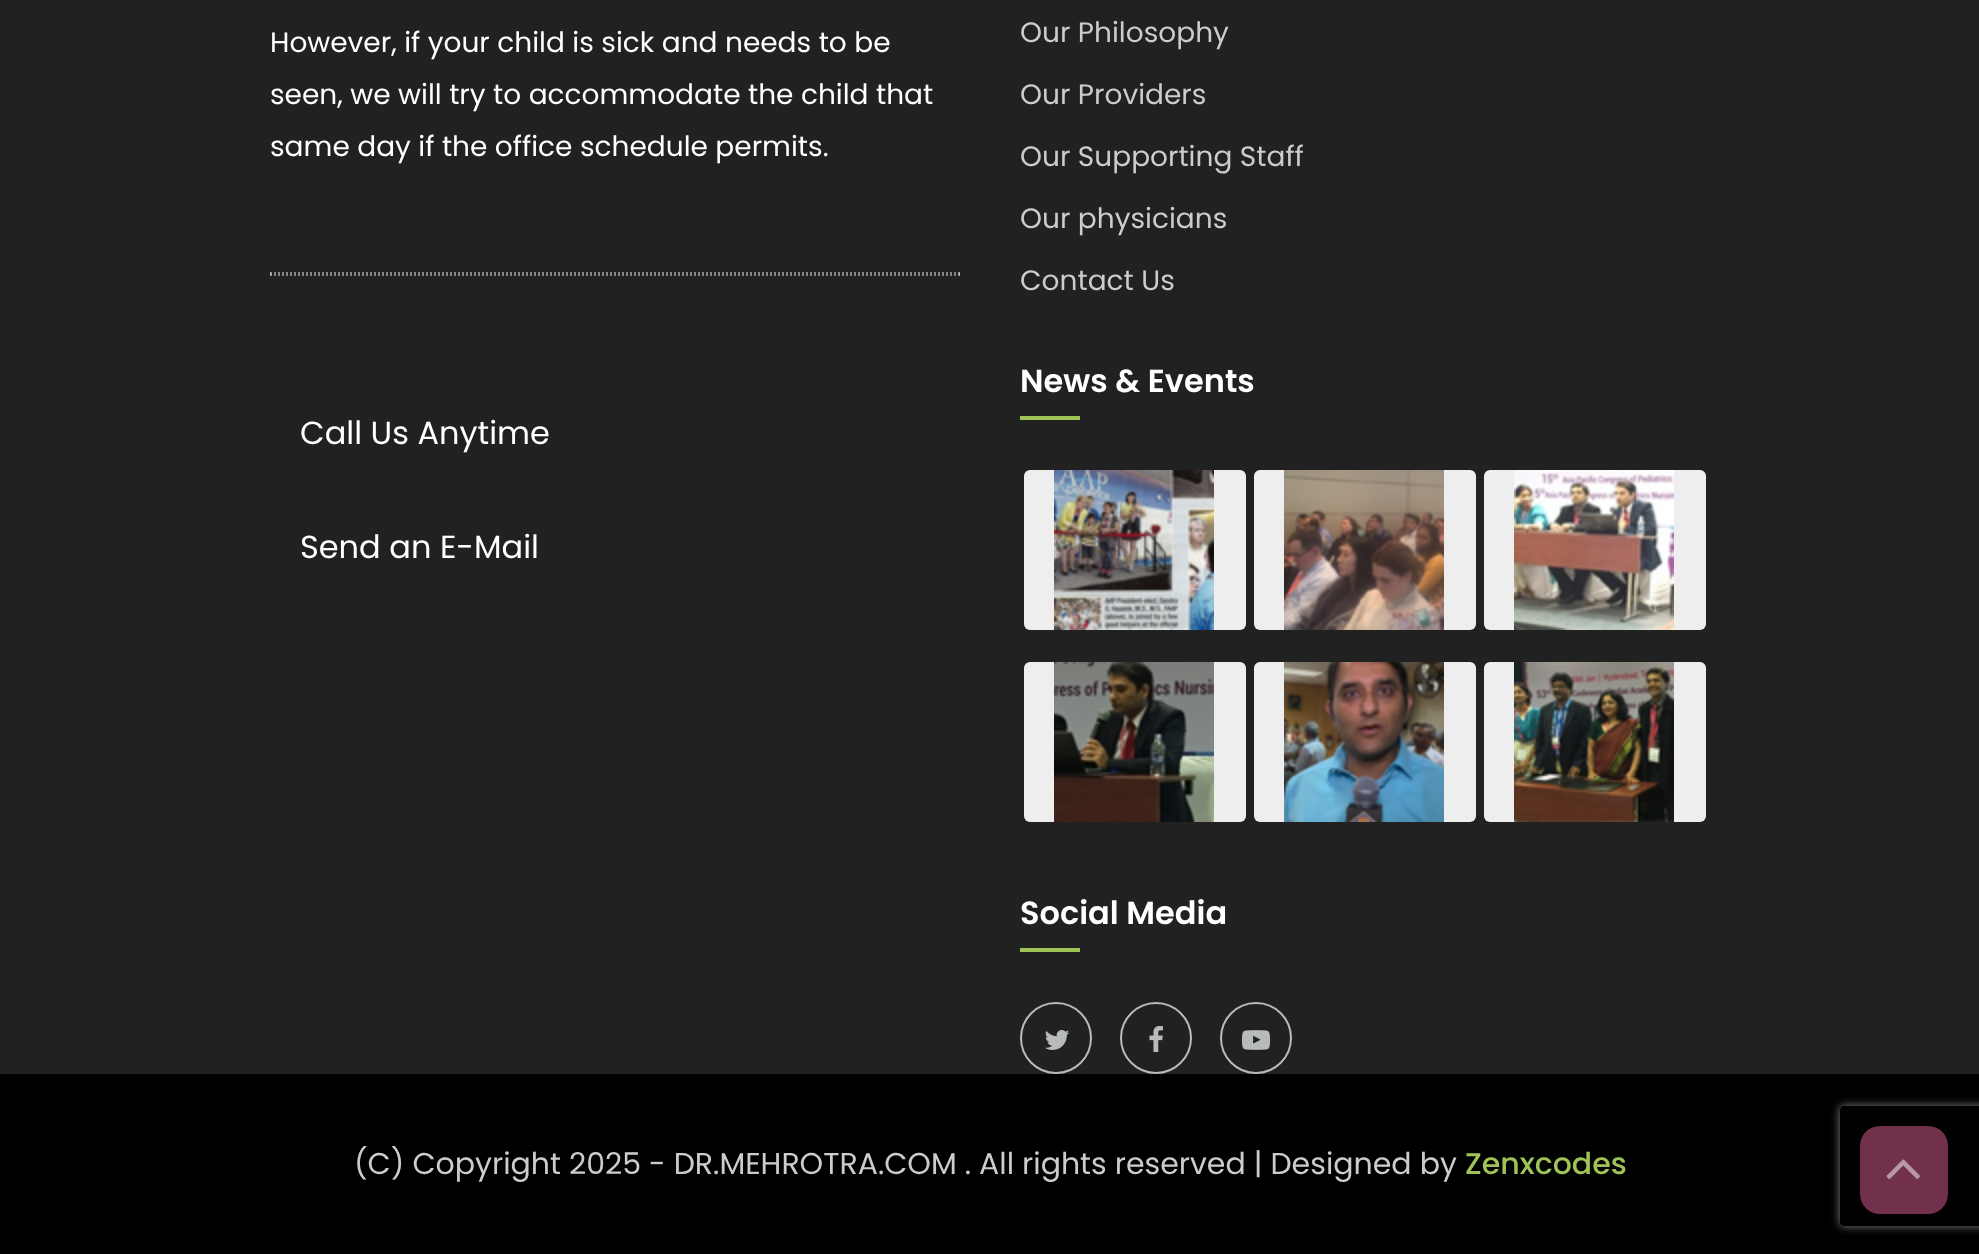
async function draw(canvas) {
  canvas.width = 1979
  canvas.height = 1254
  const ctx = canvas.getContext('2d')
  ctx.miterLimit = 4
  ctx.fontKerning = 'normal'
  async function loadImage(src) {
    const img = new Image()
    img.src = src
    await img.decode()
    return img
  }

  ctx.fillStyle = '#212121'
  ctx.fillRect(0, 0, 1979, 1254)
  ctx.font = '28px Poppins'
  ctx.fillStyle = '#fff'
  ctx.fillText('However, if your child is sick and needs to be', 270, 52)
  ctx.fillText('seen, we will try to accommodate the child that', 270, 104)
  ctx.fillText('same day if the office schedule permits.', 270, 156)
  ctx.beginPath()
  ctx.moveTo(270, 273)
  ctx.lineTo(960, 273)
  ctx.strokeStyle = '#858585'
  ctx.lineWidth = 2
  ctx.setLineDash([2, 2])
  ctx.stroke()
  ctx.fillStyle = '#ffffff73'
  ctx.beginPath()
  ctx.moveTo(960, 272)
  ctx.lineTo(960, 276)
  ctx.lineTo(958, 274)
  ctx.closePath()
  ctx.fill()
  ctx.beginPath()
  ctx.moveTo(270, 275)
  ctx.lineTo(960, 275)
  ctx.strokeStyle = '#ffffff73'
  ctx.stroke()
  ctx.fillStyle = '#bcbcbc'
  ctx.beginPath()
  ctx.moveTo(270, 276)
  ctx.lineTo(270, 272)
  ctx.lineTo(272, 274)
  ctx.closePath()
  ctx.fill()
  ctx.font = '32px Poppins'
  ctx.fillStyle = '#fff'
  ctx.fillText('Call Us Anytime', 300, 444)
  ctx.fillText('Send an E-Mail', 300, 558)
  ctx.font = '28px Poppins'
  ctx.fillStyle = '#ccc'
  ctx.fillText('Our Philosophy', 1020, 42)
  ctx.fillText('Our Providers', 1020, 104)
  ctx.fillText('Our Supporting Staff', 1020, 166)
  ctx.fillText('Our physicians', 1020, 228)
  ctx.fillText('Contact Us', 1020, 290)
  ctx.font = '600 32px Poppins'
  ctx.fillStyle = '#fff'
  ctx.fillText('News & Events', 1020, 392)
  ctx.fillStyle = '#9fc356'
  ctx.fillRect(1020, 416, 60, 4)
  ctx.fillStyle = '#eee'
  ctx.beginPath()
  ctx.roundRect(1024, 470, 222, 160, 6)
  ctx.fill()
  ctx.drawImage(await loadImage('image0.png'), 1054, 470, 160, 160)
  ctx.beginPath()
  ctx.roundRect(1254, 470, 222, 160, 6)
  ctx.fill()
  ctx.drawImage(await loadImage('image1.png'), 1284, 470, 160, 160)
  ctx.beginPath()
  ctx.roundRect(1484, 470, 222, 160, 6)
  ctx.fill()
  ctx.drawImage(await loadImage('image2.png'), 1514, 470, 160, 160)
  ctx.beginPath()
  ctx.roundRect(1024, 662, 222, 160, 6)
  ctx.fill()
  ctx.drawImage(await loadImage('image3.png'), 1054, 662, 160, 160)
  ctx.beginPath()
  ctx.roundRect(1254, 662, 222, 160, 6)
  ctx.fill()
  ctx.drawImage(await loadImage('image4.png'), 1284, 662, 160, 160)
  ctx.beginPath()
  ctx.roundRect(1484, 662, 222, 160, 6)
  ctx.fill()
  ctx.drawImage(await loadImage('image5.png'), 1514, 662, 160, 160)
  ctx.fillStyle = '#fff'
  ctx.fillText('Social Media', 1020, 924)
  ctx.fillStyle = '#9fc356'
  ctx.fillRect(1020, 948, 60, 4)
  ctx.beginPath()
  ctx.arc(1056, 1038, 35, 0, 2 * Math.PI)
  ctx.strokeStyle = '#b8bbbc'
  ctx.setLineDash([])
  ctx.stroke()
  ctx.drawImage(await loadImage('image6.png'), 1044, 1030, 26, 20)
  ctx.beginPath()
  ctx.arc(1156, 1038, 35, 0, 2 * Math.PI)
  ctx.stroke()
  ctx.drawImage(await loadImage('image7.png'), 1149, 1026, 14, 26)
  ctx.beginPath()
  ctx.arc(1256, 1038, 35, 0, 2 * Math.PI)
  ctx.stroke()
  ctx.drawImage(await loadImage('image8.png'), 1242, 1030, 28, 20)
  ctx.fillStyle = '#000'
  ctx.fillRect(0, 1074, 1979, 180)
  ctx.font = '30px Poppins'
  ctx.fillStyle = '#ccc'
  ctx.fillText('(C) Copyright 2025 - DR.MEHROTRA.COM . All rights reserved | Designed by', 354, 1174)
  ctx.font = '500 30px Poppins'
  ctx.fillStyle = '#9fc356'
  ctx.fillText('Zenxcodes', 1465, 1174)
  ctx.save()
  ctx.beginPath()
  ctx.moveTo(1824, 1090)
  ctx.lineTo(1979, 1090)
  ctx.lineTo(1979, 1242)
  ctx.lineTo(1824, 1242)
  ctx.closePath()
  ctx.moveTo(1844, 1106)
  ctx.lineTo(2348, 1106)
  ctx.bezierCurveTo(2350, 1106, 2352, 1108, 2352, 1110)
  ctx.lineTo(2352, 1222)
  ctx.bezierCurveTo(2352, 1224, 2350, 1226, 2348, 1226)
  ctx.lineTo(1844, 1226)
  ctx.bezierCurveTo(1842, 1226, 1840, 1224, 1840, 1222)
  ctx.lineTo(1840, 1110)
  ctx.bezierCurveTo(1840, 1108, 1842, 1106, 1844, 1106)
  ctx.closePath()
  ctx.clip('evenodd')
  ctx.fillStyle = '#808080'
  ctx.filter = 'blur(5px)'
  ctx.beginPath()
  ctx.roundRect(1840, 1106, 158, 120, 4)
  ctx.fill()
  ctx.filter = 'none'
  ctx.restore()
  ctx.fillStyle = '#71314c'
  ctx.beginPath()
  ctx.roundRect(1860, 1126, 88, 88, 20)
  ctx.fill()
  ctx.drawImage(await loadImage('image9.png'), 1886, 1159, 34, 20)
}

draw(document.querySelector('canvas'))
